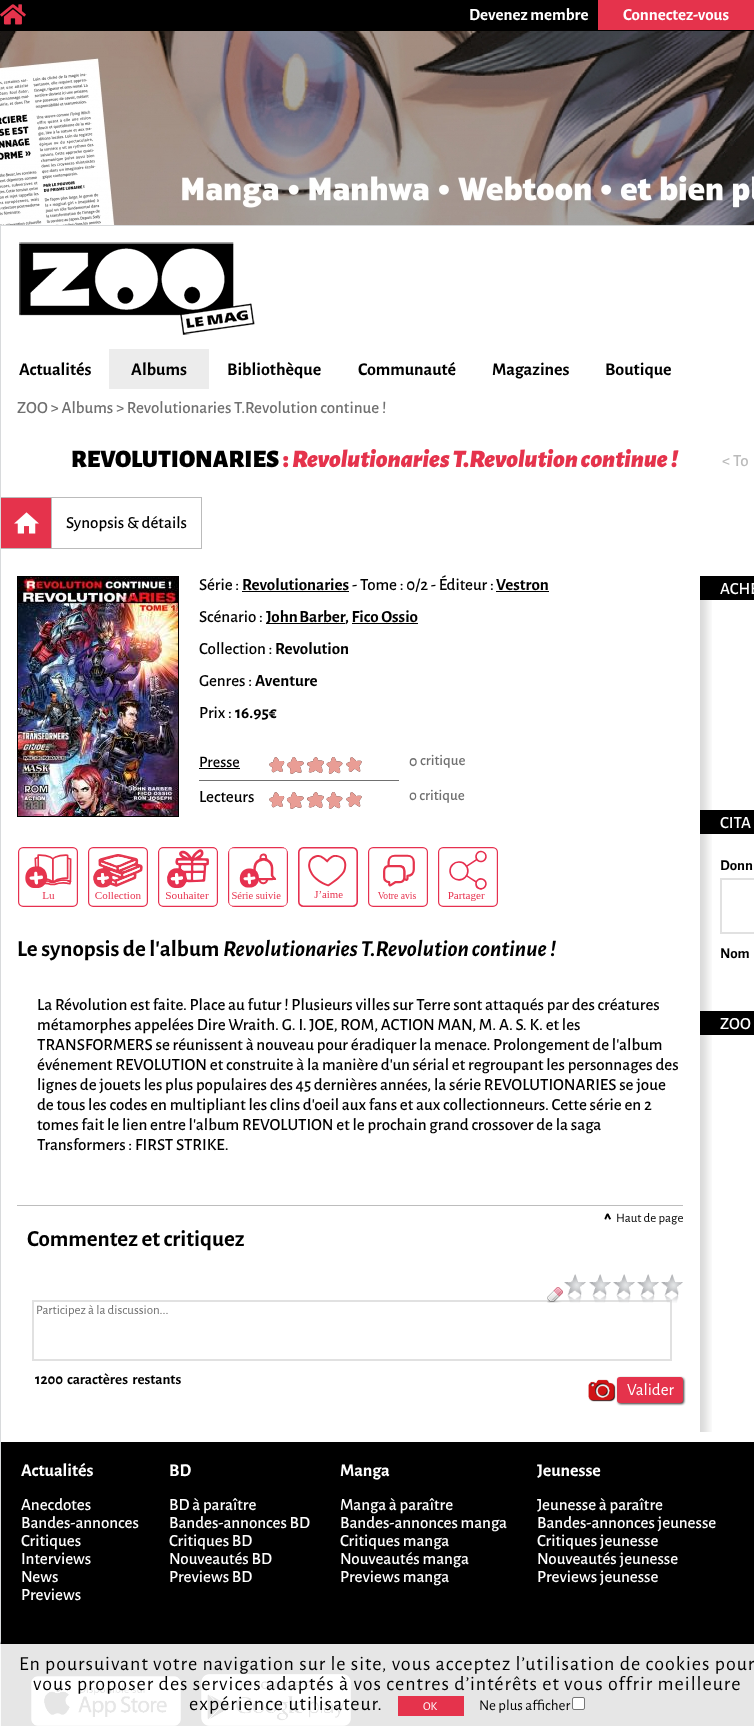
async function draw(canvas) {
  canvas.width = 754
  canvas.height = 1726
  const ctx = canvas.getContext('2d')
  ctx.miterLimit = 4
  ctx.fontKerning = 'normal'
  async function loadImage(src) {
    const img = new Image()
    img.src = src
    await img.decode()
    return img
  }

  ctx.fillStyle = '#fff'
  ctx.fillRect(0, 0, 754, 1726)
  ctx.drawImage(await loadImage('image0.png'), 0, 31, 754, 194)
  ctx.fillStyle = '#000'
  ctx.fillRect(0, 0, 754, 31)
  ctx.drawImage(await loadImage('image1.png'), 0, 4, 26, 21)
  ctx.font = 'bold 17px Alegreya Sans'
  ctx.fillStyle = '#fff'
  ctx.fillText('Devenez membre', 469, 20)
  ctx.fillStyle = '#e5334c'
  ctx.fillRect(598, 0, 156, 30)
  ctx.fillStyle = '#fff'
  ctx.fillText('Connectez-vous', 623, 20)
  ctx.strokeStyle = '#d8dadc'
  ctx.strokeRect(0.5, 225.5, 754, 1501)
  ctx.drawImage(await loadImage('image2.png'), 19, 242, 236, 93)
  ctx.font = 'bold 18px Alegreya Sans'
  ctx.fillStyle = '#000'
  ctx.fillText('Actualités', 19, 375)
  ctx.fillStyle = '#ececec'
  ctx.fillRect(109, 349, 100, 40)
  ctx.fillStyle = '#000'
  ctx.fillText('Albums', 131, 375)
  ctx.fillText('Bibliothèque', 227, 375)
  ctx.fillText('Communauté', 358, 375)
  ctx.fillText('Magazines', 492, 375)
  ctx.fillText('Boutique', 605, 375)
  ctx.font = '500 17px Alegreya Sans'
  ctx.fillStyle = '#707070'
  ctx.fillText('ZOO > Albums > Revolutionaries T.Revolution continue !', 17, 413)
  ctx.font = '900 25px Alegreya Sans'
  ctx.fillStyle = '#000'
  ctx.fillText('REVOLUTIONARIES', 71, 467)
  ctx.fillStyle = '#e5334c'
  ctx.fillText(':', 283, 467)
  ctx.font = 'italic 900 25px Alegreya Sans'
  ctx.fillText('Revolutionaries T.Revolution continue !', 292, 467)
  ctx.font = '500 17px Alegreya Sans'
  ctx.fillStyle = '#bbb'
  ctx.fillText('< To', 722, 466)
  ctx.fillStyle = '#e5334c'
  ctx.fillRect(1, 498, 50, 50)
  ctx.drawImage(await loadImage('image3.png'), 14, 512, 25, 22)
  ctx.fillStyle = '#bbb'
  ctx.fillRect(1, 497, 201, 1)
  ctx.fillRect(201, 497, 1, 52)
  ctx.fillRect(51, 548, 151, 1)
  ctx.fillRect(51, 497, 1, 52)
  ctx.fillRect(1, 548, 51, 1)
  ctx.fillStyle = '#000'
  ctx.fillText('Synopsis & détails', 66, 528)
  ctx.strokeStyle = '#000'
  ctx.strokeRect(17.5, 576.5, 161, 240)
  ctx.drawImage(await loadImage('image4.png'), 18, 577, 160, 239)
  ctx.fillText('Série :', 199, 590)
  ctx.font = 'bold 17px Alegreya Sans'
  ctx.fillText('Revolutionaries', 242, 590)
  ctx.fillRect(242, 591, 107, 1)
  ctx.font = '500 17px Alegreya Sans'
  ctx.fillText('- Tome : 0/2 - Éditeur :', 352, 590)
  ctx.font = 'bold 17px Alegreya Sans'
  ctx.fillText('Vestron', 496, 590)
  ctx.fillRect(496, 591, 53, 1)
  ctx.font = '500 17px Alegreya Sans'
  ctx.fillText('Scénario :', 199, 622)
  ctx.fillRect(266, 623, 79, 1)
  ctx.wordSpacing = '-1px'
  ctx.font = 'bold 17px Alegreya Sans'
  ctx.fillText('John Barber', 266, 622)
  ctx.wordSpacing = '0px'
  ctx.fillText(', Fico Ossio', 345, 622)
  ctx.fillRect(352, 623, 66, 1)
  ctx.font = '500 17px Alegreya Sans'
  ctx.fillText('Collection :', 199, 654)
  ctx.font = 'bold 17px Alegreya Sans'
  ctx.fillText('Revolution', 275, 654)
  ctx.font = '500 17px Alegreya Sans'
  ctx.fillText('Genres :', 199, 686)
  ctx.font = 'bold 17px Alegreya Sans'
  ctx.fillText('Aventure', 255, 686)
  ctx.font = '500 17px Alegreya Sans'
  ctx.fillText('Prix :', 199, 718)
  ctx.font = 'bold 17px Alegreya Sans'
  ctx.fillText('16.95€', 235, 718)
  ctx.font = '500 16px Alegreya Sans'
  ctx.fillText('Presse', 199, 767)
  ctx.fillRect(199, 768, 41, 1)
  ctx.drawImage(await loadImage('image5.png'), 269, 757, 93, 17)
  ctx.fillStyle = '#707070'
  ctx.fillText('0', 409, 766)
  ctx.font = '500 15px Alegreya Sans'
  ctx.fillText('critique', 420, 765)
  ctx.fillRect(199, 780, 200, 1)
  ctx.font = '500 17px Alegreya Sans'
  ctx.fillStyle = '#000'
  ctx.fillText('Lecteurs', 199, 802)
  ctx.drawImage(await loadImage('image6.png'), 269, 792, 93, 17)
  ctx.font = '500 15px Alegreya Sans'
  ctx.fillStyle = '#707070'
  ctx.fillText('0 critique', 409, 800)
  ctx.drawImage(await loadImage('image7.png'), 18, 847, 60, 60)
  ctx.drawImage(await loadImage('image8.png'), 88, 847, 60, 60)
  ctx.drawImage(await loadImage('image9.png'), 158, 847, 60, 60)
  ctx.drawImage(await loadImage('image10.png'), 228, 847, 60, 60)
  ctx.drawImage(await loadImage('image11.png'), 228, 847, 60, 60)
  ctx.drawImage(await loadImage('image12.png'), 298, 847, 60, 60)
  ctx.drawImage(await loadImage('image13.png'), 368, 847, 60, 60)
  ctx.drawImage(await loadImage('image14.png'), 438, 847, 60, 60)
  ctx.font = 'bold 23px Alegreya Sans'
  ctx.fillStyle = '#000'
  ctx.fillText('Le synopsis de l\'album', 17, 956)
  ctx.font = 'italic bold 23px Alegreya Sans'
  ctx.fillText('Revolutionaries T.Revolution continue !', 223, 956)
  ctx.font = '500 17px Alegreya Sans'
  ctx.fillText('La Révolution est faite. Place au futur ! Plusieurs villes sur Terre sont attaqués par des créatures', 37, 1010)
  ctx.fillText('métamorphes appelées Dire Wraith. G. I. JOE, ROM, ACTION MAN, M. A. S. K. et les', 37, 1030)
  ctx.fillText('TRANSFORMERS se réunissent à nouveau pour éradiquer la menace. Prolongement de l\'album', 37, 1050)
  ctx.fillText('événement REVOLUTION et construite à la manière d\'un sérial et regroupant les personnages des', 37, 1070)
  ctx.fillText('lignes de jouets les plus populaires des 45 dernières années, la série REVOLUTIONARIES se joue', 37, 1090)
  ctx.fillText('de tous les codes en multipliant les clins d\'oeil aux fans et aux collectionneurs. Cette série en 2', 37, 1110)
  ctx.fillText('tomes fait le lien entre l\'album REVOLUTION et le prochain grand crossover de la saga', 37, 1130)
  ctx.fillText('Transformers : FIRST STRIKE.', 37, 1150)
  ctx.fillStyle = '#bdbdbd'
  ctx.fillRect(17, 1205, 666, 1)
  ctx.drawImage(await loadImage('image15.png'), 604, 1213, 7, 7)
  ctx.font = '13px Alegreya Sans'
  ctx.fillStyle = '#000'
  ctx.fillText('Haut de page', 616, 1222)
  ctx.font = 'bold 23px Alegreya Sans'
  ctx.fillText('Commentez et critiquez', 27, 1246)
  ctx.strokeStyle = '#e1e1e1'
  ctx.lineWidth = 2
  ctx.strokeRect(33, 1301, 638, 59)
  ctx.drawImage(await loadImage('image16.png'), 547, 1287, 16, 16)
  ctx.drawImage(await loadImage('image17.png'), 564, 1274, 22, 29)
  ctx.drawImage(await loadImage('image17.png'), 589, 1274, 22, 29)
  ctx.drawImage(await loadImage('image17.png'), 613, 1274, 22, 29)
  ctx.drawImage(await loadImage('image17.png'), 637, 1274, 22, 29)
  ctx.drawImage(await loadImage('image18.png'), 661, 1274, 22, 29)
  ctx.font = '13px Alegreya Sans'
  ctx.fillStyle = '#707070'
  ctx.fillText('Participez à la discussion...', 36, 1314)
  ctx.font = 'bold 15px Alegreya Sans'
  ctx.fillStyle = '#000'
  ctx.fillText('1200', 35, 1384)
  ctx.wordSpacing = '2px'
  ctx.fillText('caractères restants', 67, 1384)
  ctx.drawImage(await loadImage('image19.png'), 588, 1379, 28, 23)
  ctx.fillStyle = '#000000cc'
  ctx.filter = 'blur(1px)'
  ctx.beginPath()
  ctx.roundRect(618, 1378, 66, 26, 3)
  ctx.fill()
  ctx.filter = 'none'
  ctx.fillStyle = '#e5334c'
  ctx.beginPath()
  ctx.roundRect(617, 1377, 66, 26, 3)
  ctx.fill()
  ctx.wordSpacing = '0px'
  ctx.font = '17px Alegreya Sans'
  ctx.fillStyle = '#fff'
  ctx.fillText('Valider', 627, 1395)
  ctx.drawImage(await loadImage('image20.png'), 700, 600, 12, 832)
  ctx.fillStyle = '#000'
  ctx.fillRect(700, 576, 54, 24)
  ctx.font = '500 17px Alegreya Sans'
  ctx.fillStyle = '#fff'
  ctx.fillText('ACHE', 720, 594)
  ctx.fillStyle = '#000'
  ctx.fillRect(700, 810, 54, 24)
  ctx.fillStyle = '#fff'
  ctx.fillText('CITA', 720, 828)
  ctx.font = 'bold 15px Alegreya Sans'
  ctx.fillStyle = '#000'
  ctx.fillText('Donn', 720, 870)
  ctx.strokeRect(721, 879, 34, 54)
  ctx.fillText('Nom', 720, 958)
  ctx.fillRect(700, 1011, 54, 24)
  ctx.font = '500 17px Alegreya Sans'
  ctx.fillStyle = '#fff'
  ctx.fillText('ZOO', 720, 1029)
  ctx.fillStyle = '#000'
  ctx.fillRect(1, 1442, 753, 284)
  ctx.font = 'bold 18px Alegreya Sans'
  ctx.fillStyle = '#fff'
  ctx.fillText('Actualités', 21, 1476)
  ctx.font = '500 17px Alegreya Sans'
  ctx.fillText('Anecdotes', 21, 1510)
  ctx.fillText('Bandes-annonces', 21, 1528)
  ctx.fillText('Critiques', 21, 1546)
  ctx.fillText('Interviews', 21, 1564)
  ctx.fillText('News', 21, 1582)
  ctx.fillText('Previews', 21, 1600)
  ctx.font = 'bold 18px Alegreya Sans'
  ctx.fillText('BD', 169, 1476)
  ctx.font = '500 17px Alegreya Sans'
  ctx.fillText('BD à paraître', 169, 1510)
  ctx.fillText('Bandes-annonces BD', 169, 1528)
  ctx.fillText('Critiques BD', 169, 1546)
  ctx.fillText('Nouveautés BD', 169, 1564)
  ctx.fillText('Previews BD', 169, 1582)
  ctx.font = 'bold 18px Alegreya Sans'
  ctx.fillText('Manga', 340, 1476)
  ctx.font = '500 17px Alegreya Sans'
  ctx.fillText('Manga à paraître', 340, 1510)
  ctx.fillText('Bandes-annonces manga', 340, 1528)
  ctx.fillText('Critiques manga', 340, 1546)
  ctx.fillText('Nouveautés manga', 340, 1564)
  ctx.fillText('Previews manga', 340, 1582)
  ctx.font = 'bold 18px Alegreya Sans'
  ctx.fillText('Jeunesse', 537, 1476)
  ctx.font = '500 17px Alegreya Sans'
  ctx.fillText('Jeunesse à paraître', 537, 1510)
  ctx.fillText('Bandes-annonces jeunesse', 537, 1528)
  ctx.fillText('Critiques jeunesse', 537, 1546)
  ctx.fillText('Nouveautés jeunesse', 537, 1564)
  ctx.fillText('Previews jeunesse', 537, 1582)
  ctx.drawImage(await loadImage('image21.png'), 31, 1676, 150, 50)
  ctx.drawImage(await loadImage('image22.png'), 201, 1674, 150, 52)
  ctx.save()
  ctx.beginPath()
  ctx.rect(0, 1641, 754, 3)
  ctx.clip()
  ctx.fillStyle = '#000000cc'
  ctx.filter = 'blur(1px)'
  ctx.beginPath()
  ctx.rect(0, 1643, 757, 82)
  ctx.fill()
  ctx.filter = 'none'
  ctx.restore()
  ctx.fillStyle = '#ffffffe6'
  ctx.fillRect(0, 1644, 754, 82)
  ctx.letterSpacing = '1px'
  ctx.font = '20px Alegreya Sans'
  ctx.fillStyle = '#000'
  ctx.fillText('En poursuivant votre navigation sur le site, vous acceptez l’utilisation de cookies pour', 19, 1670)
  ctx.fillText('vous proposer des services adaptés à vos centres d’intérêts et vous offrir meilleure', 33, 1690)
  ctx.fillText('expérience utilisateur.', 189, 1710)
  ctx.fillStyle = '#e5334c'
  ctx.fillRect(398, 1696, 66, 20)
  ctx.letterSpacing = '0px'
  ctx.font = '12px Alegreya Sans'
  ctx.fillStyle = '#fff'
  ctx.fillText('OK', 423, 1710)
  ctx.font = '15px Alegreya Sans'
  ctx.fillStyle = '#000'
  ctx.fillText('Ne plus afficher', 479, 1710)
  ctx.fillStyle = '#fff'
  ctx.beginPath()
  ctx.roundRect(572.5, 1697.5, 12, 12, 1.5)
  ctx.fill()
  ctx.strokeStyle = '#767676'
  ctx.lineWidth = 1
  ctx.stroke()
}

draw(document.querySelector('canvas'))
